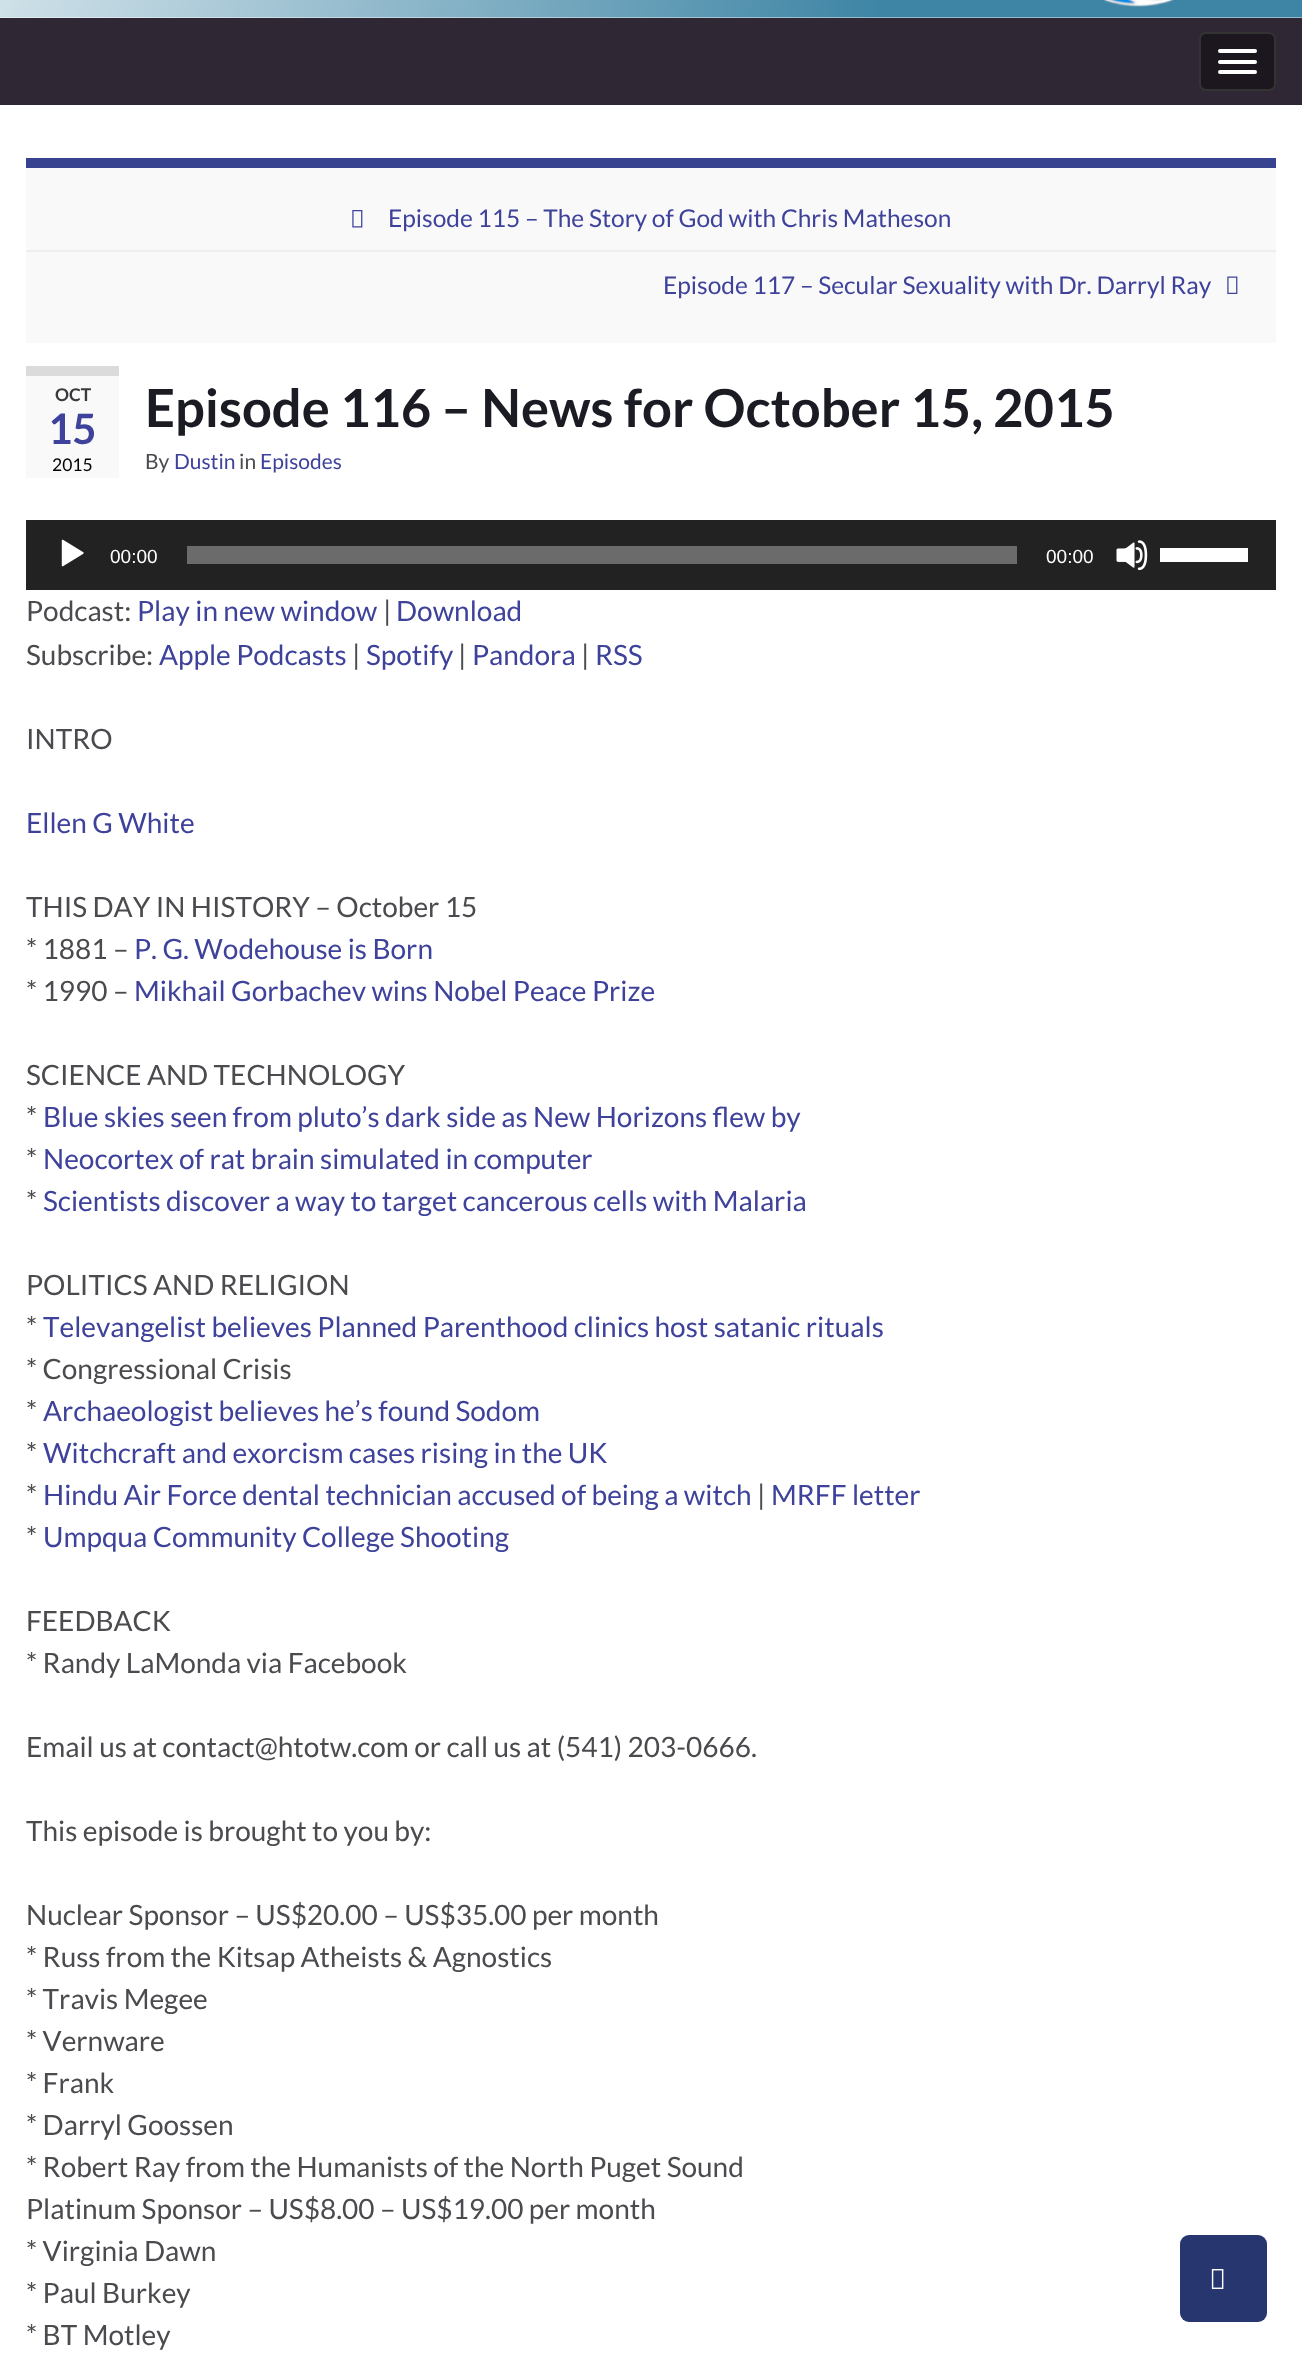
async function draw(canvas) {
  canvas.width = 1302
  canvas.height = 2356
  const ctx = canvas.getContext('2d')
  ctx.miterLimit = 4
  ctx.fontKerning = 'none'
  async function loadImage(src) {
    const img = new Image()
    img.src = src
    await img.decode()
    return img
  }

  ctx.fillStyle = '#fff'
  ctx.fillRect(0, 0, 1302, 2356)
  ctx.drawImage(await loadImage('image0.png'), 0, 0, 1302, 18)
  ctx.fillStyle = '#2f2733'
  ctx.fillRect(0, 18, 1302, 87)
  ctx.fillStyle = '#1c171f'
  ctx.beginPath()
  ctx.roundRect(1200, 33, 75, 57, 6)
  ctx.fill()
  ctx.strokeStyle = '#333'
  ctx.lineWidth = 2
  ctx.stroke()
  ctx.fillStyle = '#fff'
  ctx.beginPath()
  ctx.roundRect(1218, 49, 39, 4, 2)
  ctx.fill()
  ctx.beginPath()
  ctx.roundRect(1218, 60, 39, 4, 2)
  ctx.fill()
  ctx.beginPath()
  ctx.roundRect(1218, 70, 39, 4, 2)
  ctx.fill()
  ctx.fillStyle = '#f9f9f9'
  ctx.fillRect(26, 168, 1250, 175)
  ctx.fillStyle = '#37438e'
  ctx.fillRect(26, 158, 1250, 10)
  ctx.drawImage(await loadImage('image1.png'), 352, 210, 11, 18)
  ctx.font = '24.5px Lato'
  ctx.fillStyle = '#3e429b'
  ctx.fillText('Episode 115 – The Story of God with Chris Matheson', 388, 227)
  ctx.fillStyle = '#eee'
  ctx.fillRect(26, 250, 1250, 2)
  ctx.fillStyle = '#3e429b'
  ctx.fillText('Episode 117 – Secular Sexuality with Dr. Darryl Ray', 663, 294)
  ctx.drawImage(await loadImage('image2.png'), 1227, 276, 11, 18)
  ctx.fillStyle = '#f9f9f9'
  ctx.fillRect(26, 376, 93, 102)
  ctx.fillStyle = '#dbdbdb'
  ctx.fillRect(26, 366, 93, 10)
  ctx.font = 'bold 17.5px Lato'
  ctx.fillStyle = '#3b383d'
  ctx.fillText('OCT', 55, 401)
  ctx.font = 'bold 42px Lato'
  ctx.fillStyle = '#3e429b'
  ctx.fillText('15', 48, 444)
  ctx.font = '17.5px Lato'
  ctx.fillStyle = '#000'
  ctx.fillText('2015', 52, 471)
  ctx.font = 'bold 52.5px Lato'
  ctx.fillStyle = '#1b1c23'
  ctx.fillText('Episode 116 – News for October 15, 2015', 145, 427)
  ctx.font = '21px Lato'
  ctx.fillStyle = '#4b4b4f'
  ctx.fillText('By', 145, 469)
  ctx.fillStyle = '#3e429b'
  ctx.fillText('Dustin', 174, 469)
  ctx.fillStyle = '#4b4b4f'
  ctx.fillText('in', 239, 469)
  ctx.fillStyle = '#3e429b'
  ctx.fillText('Episodes', 260, 469)
  ctx.fillStyle = '#222'
  ctx.fillRect(26, 520, 1250, 70)
  ctx.drawImage(await loadImage('image3.png'), 61, 539, 23, 28)
  ctx.font = '19px Liberation Sans'
  ctx.fillStyle = '#fff'
  ctx.fillText('00:00', 110, 563)
  ctx.fillStyle = '#6b6b6b'
  ctx.fillRect(187, 546, 830, 18)
  ctx.fillStyle = '#fff'
  ctx.fillText('00:00', 1046, 563)
  ctx.drawImage(await loadImage('image4.png'), 1116, 540, 32, 30)
  ctx.fillRect(1160, 548, 88, 14)
  ctx.font = '28px Lato'
  ctx.fillStyle = '#4b4b4f'
  ctx.fillText('Podcast:', 26, 621)
  ctx.fillStyle = '#3e429b'
  ctx.fillText('Play in new window', 137, 621)
  ctx.fillStyle = '#4b4b4f'
  ctx.fillText('|', 383, 621)
  ctx.fillStyle = '#3e429b'
  ctx.fillText('Download', 396, 621)
  ctx.fillStyle = '#4b4b4f'
  ctx.fillText('Subscribe:', 26, 665)
  ctx.fillStyle = '#3e429b'
  ctx.fillText('Apple Podcasts', 159, 665)
  ctx.fillStyle = '#4b4b4f'
  ctx.fillText('|', 352, 665)
  ctx.fillStyle = '#3e429b'
  ctx.fillText('Spotify', 366, 665)
  ctx.fillStyle = '#4b4b4f'
  ctx.fillText('|', 458, 665)
  ctx.fillStyle = '#3e429b'
  ctx.fillText('Pandora', 472, 665)
  ctx.fillStyle = '#4b4b4f'
  ctx.fillText('|', 581, 665)
  ctx.fillStyle = '#3e429b'
  ctx.fillText('RSS', 595, 665)
  ctx.fillStyle = '#4b4b4f'
  ctx.fillText('INTRO', 26, 749)
  ctx.fillStyle = '#3e429b'
  ctx.fillText('Ellen G White', 26, 833)
  ctx.fillStyle = '#4b4b4f'
  ctx.fillText('THIS DAY IN HISTORY – October 15', 26, 917)
  ctx.fillText('* 1881 –', 26, 959)
  ctx.fillStyle = '#3e429b'
  ctx.fillText('P. G. Wodehouse is Born', 134, 959)
  ctx.fillStyle = '#4b4b4f'
  ctx.fillText('* 1990 –', 26, 1001)
  ctx.fillStyle = '#3e429b'
  ctx.fillText('Mikhail Gorbachev wins Nobel Peace Prize', 134, 1001)
  ctx.fillStyle = '#4b4b4f'
  ctx.fillText('SCIENCE AND TECHNOLOGY', 26, 1085)
  ctx.fillText('*', 26, 1127)
  ctx.fillStyle = '#3e429b'
  ctx.fillText('Blue skies seen from pluto’s dark side as New Horizons flew by', 43, 1127)
  ctx.fillStyle = '#4b4b4f'
  ctx.fillText('*', 26, 1169)
  ctx.fillStyle = '#3e429b'
  ctx.fillText('Neocortex of rat brain simulated in computer', 43, 1169)
  ctx.fillStyle = '#4b4b4f'
  ctx.fillText('*', 26, 1211)
  ctx.fillStyle = '#3e429b'
  ctx.fillText('Scientists discover a way to target cancerous cells with Malaria', 43, 1211)
  ctx.fillStyle = '#4b4b4f'
  ctx.fillText('POLITICS AND RELIGION', 26, 1295)
  ctx.fillText('*', 26, 1337)
  ctx.fillStyle = '#3e429b'
  ctx.fillText('Televangelist believes Planned Parenthood clinics host satanic rituals', 43, 1337)
  ctx.fillStyle = '#4b4b4f'
  ctx.fillText('* Congressional Crisis', 26, 1379)
  ctx.fillText('*', 26, 1421)
  ctx.fillStyle = '#3e429b'
  ctx.fillText('Archaeologist believes he’s found Sodom', 43, 1421)
  ctx.fillStyle = '#4b4b4f'
  ctx.fillText('*', 26, 1463)
  ctx.fillStyle = '#3e429b'
  ctx.fillText('Witchcraft and exorcism cases rising in the UK', 43, 1463)
  ctx.fillStyle = '#4b4b4f'
  ctx.fillText('*', 26, 1505)
  ctx.fillStyle = '#3e429b'
  ctx.fillText('Hindu Air Force dental technician accused of being a witch', 43, 1505)
  ctx.fillStyle = '#4b4b4f'
  ctx.fillText('|', 757, 1505)
  ctx.fillStyle = '#3e429b'
  ctx.fillText('MRFF letter', 771, 1505)
  ctx.fillStyle = '#4b4b4f'
  ctx.fillText('*', 26, 1547)
  ctx.fillStyle = '#3e429b'
  ctx.fillText('Umpqua Community College Shooting', 43, 1547)
  ctx.fillStyle = '#4b4b4f'
  ctx.fillText('FEEDBACK', 26, 1631)
  ctx.fillText('* Randy LaMonda via Facebook', 26, 1673)
  ctx.fillText('Email us at contact@htotw.com or call us at (541) 203-0666.', 26, 1757)
  ctx.fillText('This episode is brought to you by:', 26, 1841)
  ctx.fillText('Nuclear Sponsor – US$20.00 – US$35.00 per month', 26, 1925)
  ctx.fillText('* Russ from the Kitsap Atheists & Agnostics', 26, 1967)
  ctx.fillText('* Travis Megee', 26, 2009)
  ctx.fillText('* Vernware', 26, 2051)
  ctx.fillText('* Frank', 26, 2093)
  ctx.fillText('* Darryl Goossen', 26, 2135)
  ctx.fillText('* Robert Ray from the Humanists of the North Puget Sound', 26, 2177)
  ctx.fillText('Platinum Sponsor – US$8.00 – US$19.00 per month', 26, 2219)
  ctx.fillText('* Virginia Dawn', 26, 2261)
  ctx.fillText('* Paul Burkey', 26, 2303)
  ctx.fillText('* BT Motley', 26, 2345)
  ctx.fillStyle = '#283670'
  ctx.beginPath()
  ctx.roundRect(1180, 2235, 87, 87, 9)
  ctx.fill()
  ctx.drawImage(await loadImage('image5.png'), 1211, 2269, 13, 20)
}

draw(document.querySelector('canvas'))
